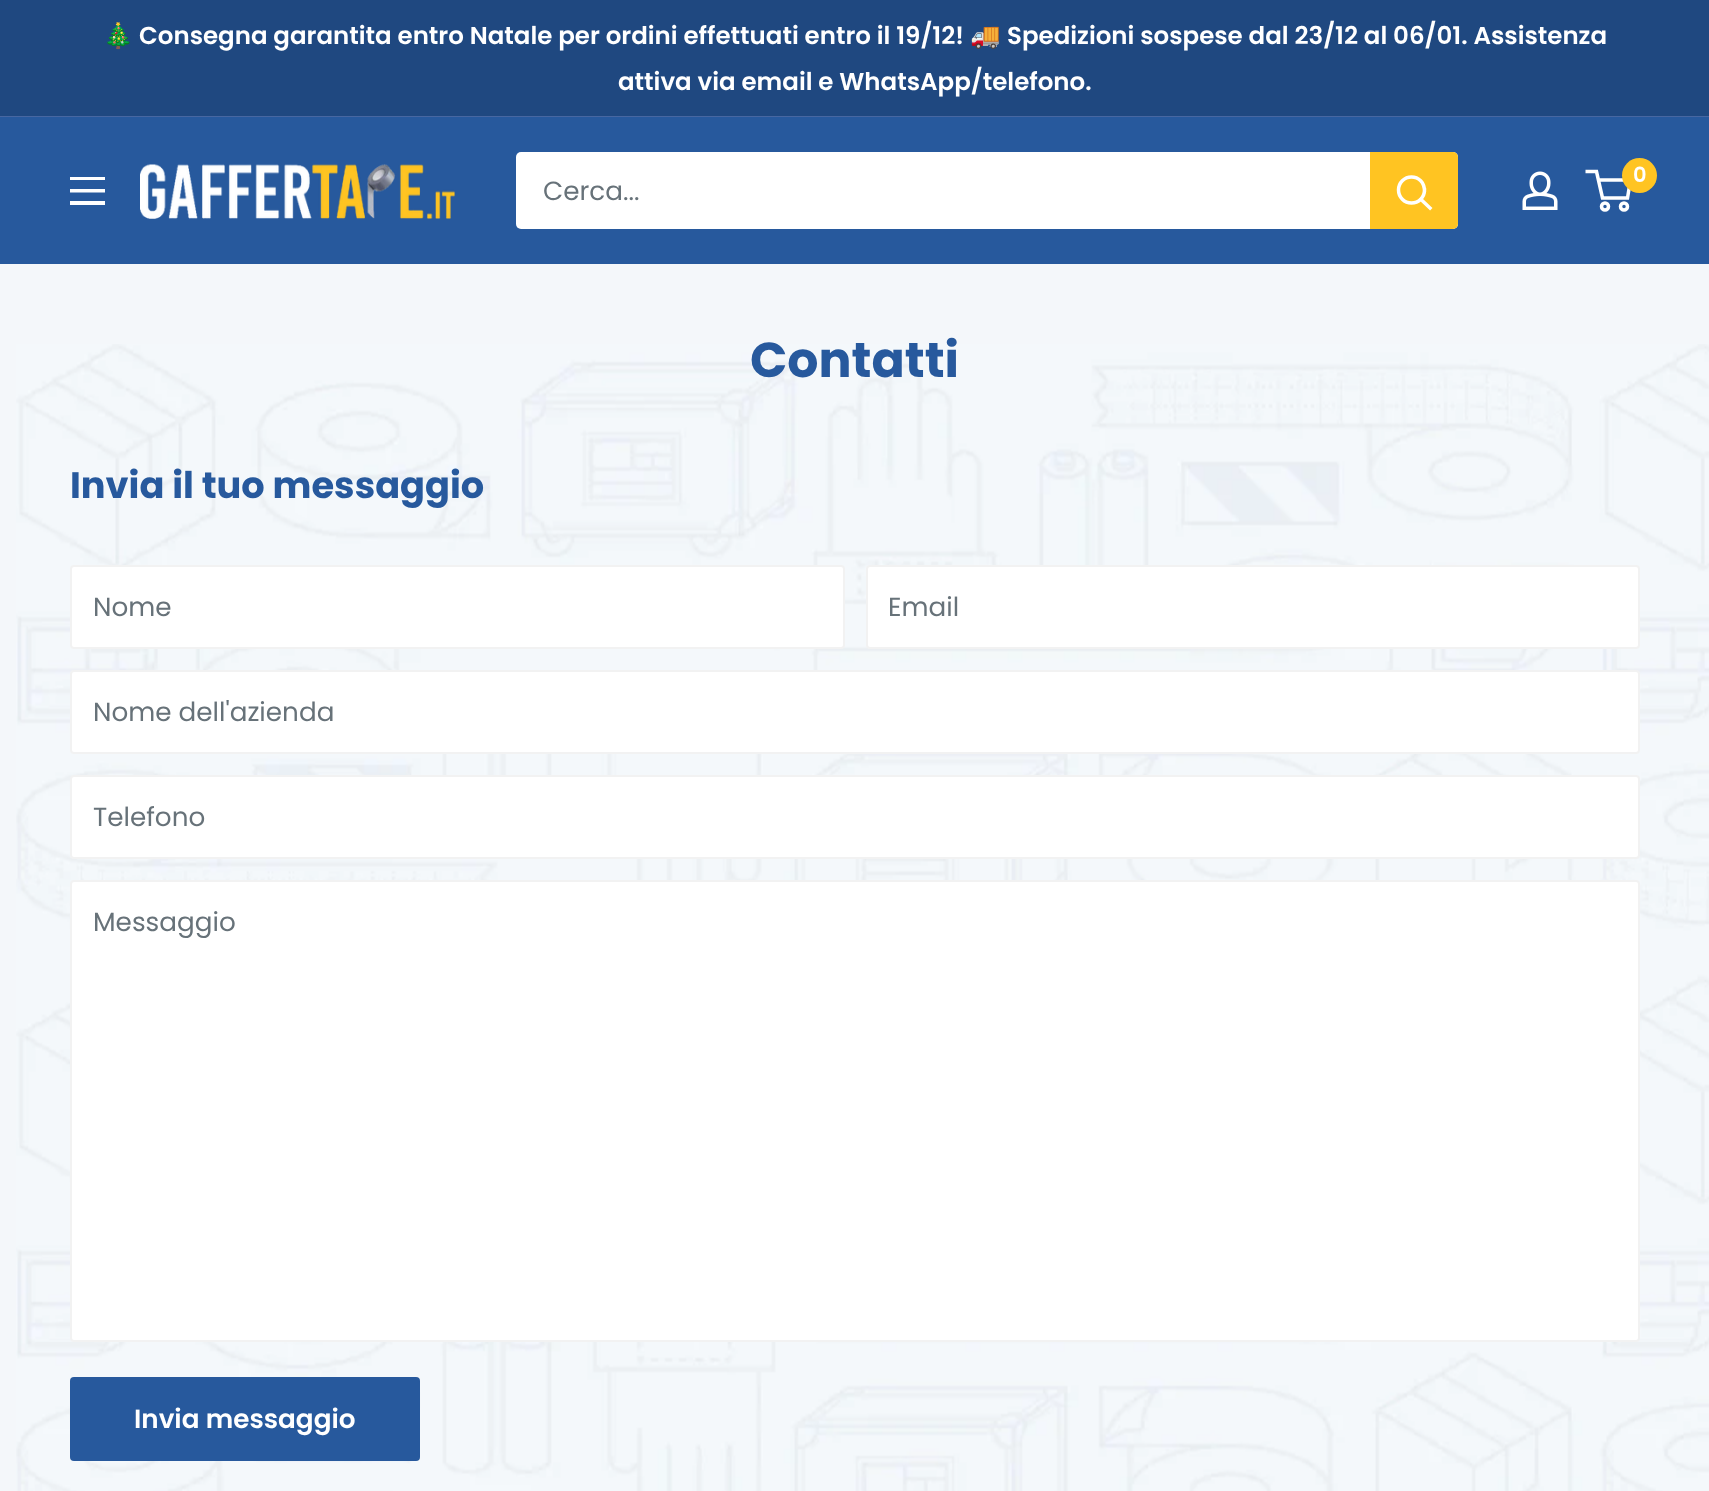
async function draw(canvas) {
  canvas.width = 1709
  canvas.height = 1491
  const ctx = canvas.getContext('2d')
  ctx.miterLimit = 4
  ctx.fontKerning = 'normal'
  async function loadImage(src) {
    const img = new Image()
    img.src = src
    await img.decode()
    return img
  }

  ctx.fillStyle = '#f4f7fa'
  ctx.fillRect(0, 0, 1709, 1491)
  ctx.fillStyle = '#1f4880'
  ctx.fillRect(0, 0, 1709, 116)
  ctx.fillStyle = '#4767a1'
  ctx.fillRect(0, 116, 1709, 1)
  ctx.font = 'bold 24.5px Noto Color Emoji'
  ctx.fillStyle = '#fff'
  ctx.fillText('🎄', 103, 44)
  ctx.font = '600 24.5px Poppins'
  ctx.fillText('Consegna garantita entro Natale per ordini effettuati entro il 19/12!', 139, 44)
  ctx.font = 'bold 24.5px Noto Color Emoji'
  ctx.fillText('🚚', 970, 44)
  ctx.font = '600 24.5px Poppins'
  ctx.fillText('Spedizioni sospese dal 23/12 al 06/01. Assistenza', 1007, 44)
  ctx.fillText('attiva via email e WhatsApp/telefono.', 618, 90)
  ctx.fillStyle = '#27599d'
  ctx.fillRect(0, 117, 1709, 147)
  ctx.drawImage(await loadImage('image0.png'), 140, 164, 315, 55)
  ctx.drawImage(await loadImage('image1.png'), 1522, 171, 36, 39)
  ctx.beginPath()
  ctx.arc(1605, 206.5, 3.5, 0, 2 * Math.PI)
  ctx.strokeStyle = '#fff'
  ctx.lineWidth = 3.5
  ctx.stroke()
  ctx.beginPath()
  ctx.arc(1624, 206.5, 3.5, 0, 2 * Math.PI)
  ctx.stroke()
  ctx.beginPath()
  ctx.moveTo(1598.5, 180)
  ctx.lineTo(1630.5, 180)
  ctx.lineTo(1627.5, 198)
  ctx.lineTo(1602.5, 198)
  ctx.lineTo(1596.5, 171.5)
  ctx.lineTo(1585.5, 171.5)
  ctx.stroke()
  ctx.fillStyle = '#ffc422'
  ctx.beginPath()
  ctx.arc(1639.5, 175.5, 17.5, 0, 2 * Math.PI)
  ctx.fill()
  ctx.font = '600 21px Poppins'
  ctx.fillStyle = '#fff'
  ctx.fillText('0', 1633, 182)
  ctx.beginPath()
  ctx.moveTo(70, 201)
  ctx.lineTo(105, 201)
  ctx.lineTo(105, 205)
  ctx.lineTo(70, 205)
  ctx.closePath()
  ctx.moveTo(70, 177)
  ctx.lineTo(105, 177)
  ctx.lineTo(105, 180)
  ctx.lineTo(70, 180)
  ctx.closePath()
  ctx.moveTo(70, 189)
  ctx.lineTo(105, 189)
  ctx.lineTo(105, 192.5)
  ctx.lineTo(70, 192.5)
  ctx.closePath()
  ctx.fill('evenodd')
  ctx.beginPath()
  ctx.roundRect(516, 152, 942, 77, 5)
  ctx.fill()
  ctx.font = '26.25px Poppins'
  ctx.fillStyle = '#677279'
  ctx.fillText('Cerca...', 543, 200)
  ctx.fillStyle = '#ffc422'
  ctx.beginPath()
  ctx.roundRect(1370, 152, 88, 77, [0, 5, 5, 0])
  ctx.fill()
  ctx.beginPath()
  ctx.moveTo(1430, 208)
  ctx.lineTo(1421, 199.5)
  ctx.lineCap = 'square'
  ctx.stroke()
  ctx.beginPath()
  ctx.arc(1411.5, 190, 13, 0, 2 * Math.PI)
  ctx.stroke()
  ctx.drawImage(await loadImage('image2.png'), 16, 344, 1693, 1147)
  ctx.font = 'bold 49px Poppins'
  ctx.fillStyle = '#27599d'
  ctx.fillText('Contatti', 750, 377)
  ctx.font = 'bold 36.75px Poppins'
  ctx.fillText('Invia il tuo messaggio', 70, 498)
  ctx.fillStyle = '#fff'
  ctx.beginPath()
  ctx.roundRect(71, 566, 773, 82, 3)
  ctx.fill()
  ctx.strokeStyle = '#f2f2f2'
  ctx.lineWidth = 2
  ctx.stroke()
  ctx.font = '26.25px Poppins'
  ctx.fillStyle = '#677279'
  ctx.fillText('Nome', 93, 616)
  ctx.fillStyle = '#fff'
  ctx.beginPath()
  ctx.roundRect(867, 566, 772, 82, 3)
  ctx.fill()
  ctx.stroke()
  ctx.fillStyle = '#677279'
  ctx.fillText('Email', 888, 616)
  ctx.fillStyle = '#fff'
  ctx.beginPath()
  ctx.roundRect(71, 671, 1568, 82, 3)
  ctx.fill()
  ctx.stroke()
  ctx.fillStyle = '#677279'
  ctx.fillText('Nome dell\'azienda', 93, 721)
  ctx.fillStyle = '#fff'
  ctx.beginPath()
  ctx.roundRect(71, 776, 1568, 82, 3)
  ctx.fill()
  ctx.stroke()
  ctx.fillStyle = '#677279'
  ctx.fillText('Telefono', 93, 826)
  ctx.fillStyle = '#fff'
  ctx.beginPath()
  ctx.roundRect(71, 881, 1568, 460, 3)
  ctx.fill()
  ctx.stroke()
  ctx.fillStyle = '#677279'
  ctx.fillText('Messaggio', 93, 931)
  ctx.fillStyle = '#27599d'
  ctx.beginPath()
  ctx.roundRect(70, 1377, 350, 84, 4)
  ctx.fill()
  ctx.font = '600 26.25px Poppins'
  ctx.fillStyle = '#fff'
  ctx.fillText('Invia messaggio', 134, 1428)
}

draw(document.querySelector('canvas'))
